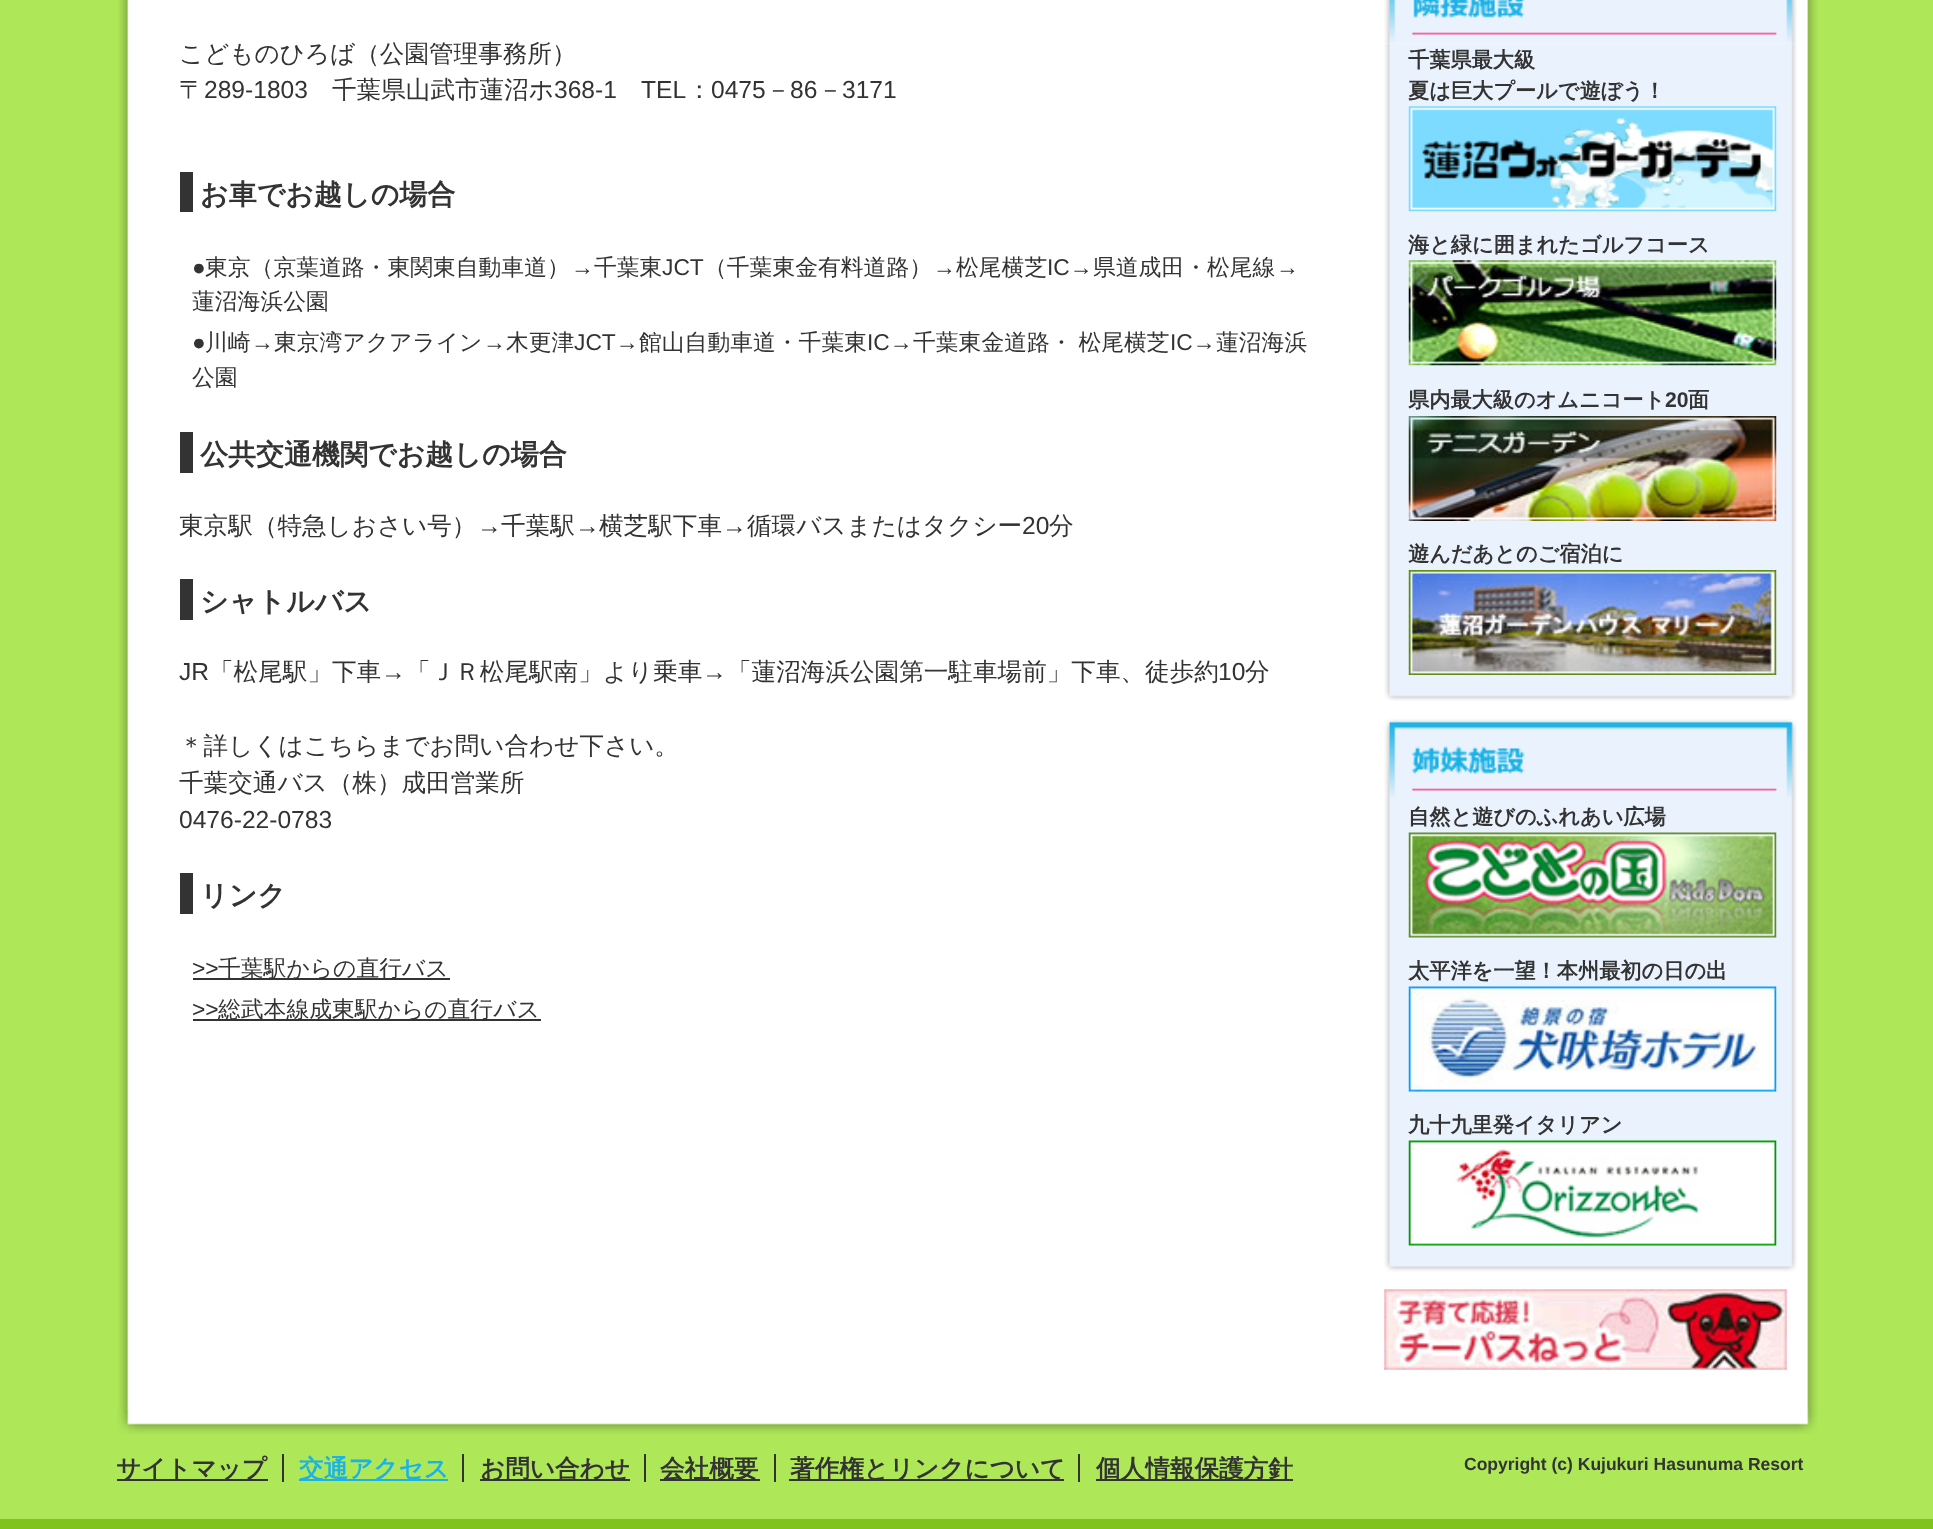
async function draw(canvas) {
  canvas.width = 1933
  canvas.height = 1529
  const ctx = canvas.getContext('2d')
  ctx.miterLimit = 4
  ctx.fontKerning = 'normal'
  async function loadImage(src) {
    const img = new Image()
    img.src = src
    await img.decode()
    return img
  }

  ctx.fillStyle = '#aee859'
  ctx.fillRect(0, 0, 1933, 1529)
  ctx.drawImage(await loadImage('image0.png'), 117, 1408, 1701, 26)
  ctx.drawImage(await loadImage('image1.png'), 118, 0, 1700, 1410)
  ctx.font = '500 24.6px WenQuanYi Zen Hei'
  ctx.fillStyle = '#333'
  ctx.fillText('こどものひろば（公園管理事務所）', 179, 62)
  ctx.fillText('〒', 179, 98)
  ctx.font = '24.6px Liberation Sans'
  ctx.fillText('289-1803', 204, 98)
  ctx.font = '500 24.6px WenQuanYi Zen Hei'
  ctx.fillText('千葉県山武市蓮沼ホ', 332, 98)
  ctx.font = '24.6px Liberation Sans'
  ctx.fillText('368-1', 554, 98)
  ctx.fillText('TEL', 641, 98)
  ctx.font = '500 24.6px WenQuanYi Zen Hei'
  ctx.fillText('：', 687, 98)
  ctx.font = '24.6px Liberation Sans'
  ctx.fillText('0475', 711, 98)
  ctx.font = '500 24.6px WenQuanYi Zen Hei'
  ctx.fillText('－', 766, 98)
  ctx.font = '24.6px Liberation Sans'
  ctx.fillText('86', 790, 98)
  ctx.font = '500 24.6px WenQuanYi Zen Hei'
  ctx.fillText('－', 818, 98)
  ctx.font = '24.6px Liberation Sans'
  ctx.fillText('3171', 842, 98)
  ctx.fillRect(180, 172, 13, 40)
  ctx.font = 'bold 28px WenQuanYi Zen Hei'
  ctx.fillText('お車でお越しの場合', 200, 204)
  ctx.font = '22.8px Liberation Sans'
  ctx.fillText('●', 192, 275)
  ctx.font = '500 22.8px WenQuanYi Zen Hei'
  ctx.fillText('東京（京葉道路・東関東自動車道）', 205, 275)
  ctx.font = '22.8px Liberation Sans'
  ctx.fillText('→', 571, 275)
  ctx.font = '500 22.8px WenQuanYi Zen Hei'
  ctx.fillText('千葉東', 594, 275)
  ctx.font = '22.8px Liberation Sans'
  ctx.fillText('JCT', 662, 275)
  ctx.font = '500 22.8px WenQuanYi Zen Hei'
  ctx.fillText('（千葉東金有料道路）', 704, 275)
  ctx.font = '22.8px Liberation Sans'
  ctx.fillText('→', 933, 275)
  ctx.font = '500 22.8px WenQuanYi Zen Hei'
  ctx.fillText('松尾横芝', 956, 275)
  ctx.font = '22.8px Liberation Sans'
  ctx.fillText('IC→', 1047, 275)
  ctx.font = '500 22.8px WenQuanYi Zen Hei'
  ctx.fillText('県道成田・松尾線', 1093, 275)
  ctx.font = '22.8px Liberation Sans'
  ctx.fillText('→', 1276, 275)
  ctx.font = '500 22.8px WenQuanYi Zen Hei'
  ctx.fillText('蓮沼海浜公園', 192, 309)
  ctx.font = '22.8px Liberation Sans'
  ctx.fillText('●', 192, 350)
  ctx.font = '500 22.8px WenQuanYi Zen Hei'
  ctx.fillText('川崎', 205, 350)
  ctx.font = '22.8px Liberation Sans'
  ctx.fillText('→', 251, 350)
  ctx.font = '500 22.8px WenQuanYi Zen Hei'
  ctx.fillText('東京湾アクアライン', 274, 350)
  ctx.font = '22.8px Liberation Sans'
  ctx.fillText('→', 483, 350)
  ctx.font = '500 22.8px WenQuanYi Zen Hei'
  ctx.fillText('木更津', 506, 350)
  ctx.font = '22.8px Liberation Sans'
  ctx.fillText('JCT→', 574, 350)
  ctx.font = '500 22.8px WenQuanYi Zen Hei'
  ctx.fillText('館山自動車道・千葉東', 639, 350)
  ctx.font = '22.8px Liberation Sans'
  ctx.fillText('IC→', 867, 350)
  ctx.wordSpacing = '-1px'
  ctx.font = '500 22.8px WenQuanYi Zen Hei'
  ctx.fillText('千葉東金道路・ 松尾横芝', 913, 350)
  ctx.wordSpacing = '0px'
  ctx.font = '22.8px Liberation Sans'
  ctx.fillText('IC→', 1170, 350)
  ctx.font = '500 22.8px WenQuanYi Zen Hei'
  ctx.fillText('蓮沼海浜', 1216, 350)
  ctx.fillText('公園', 192, 385)
  ctx.fillRect(180, 432, 13, 41)
  ctx.font = 'bold 28px WenQuanYi Zen Hei'
  ctx.fillText('公共交通機関でお越しの場合', 200, 464)
  ctx.font = '500 24.6px WenQuanYi Zen Hei'
  ctx.fillText('東京駅（特急しおさい号）', 179, 534)
  ctx.font = '24.6px Liberation Sans'
  ctx.fillText('→', 477, 534)
  ctx.font = '500 24.6px WenQuanYi Zen Hei'
  ctx.fillText('千葉駅', 501, 534)
  ctx.font = '24.6px Liberation Sans'
  ctx.fillText('→', 575, 534)
  ctx.font = '500 24.6px WenQuanYi Zen Hei'
  ctx.fillText('横芝駅下車', 599, 534)
  ctx.font = '24.6px Liberation Sans'
  ctx.fillText('→', 722, 534)
  ctx.font = '500 24.6px WenQuanYi Zen Hei'
  ctx.fillText('循環バスまたはタクシー', 747, 534)
  ctx.font = '24.6px Liberation Sans'
  ctx.fillText('20', 1022, 534)
  ctx.font = '500 24.6px WenQuanYi Zen Hei'
  ctx.fillText('分', 1049, 534)
  ctx.fillRect(180, 579, 13, 41)
  ctx.font = 'bold 28px WenQuanYi Zen Hei'
  ctx.fillText('シャトルバス', 200, 611)
  ctx.font = '24.6px Liberation Sans'
  ctx.fillText('JR', 179, 680)
  ctx.font = '500 24.6px WenQuanYi Zen Hei'
  ctx.fillText('「松尾駅」下車', 209, 680)
  ctx.font = '24.6px Liberation Sans'
  ctx.fillText('→', 381, 680)
  ctx.font = '500 24.6px WenQuanYi Zen Hei'
  ctx.fillText('「ＪＲ松尾駅南」より乗車', 406, 680)
  ctx.font = '24.6px Liberation Sans'
  ctx.fillText('→', 702, 680)
  ctx.font = '500 24.6px WenQuanYi Zen Hei'
  ctx.fillText('「蓮沼海浜公園第一駐車場前」下車、徒歩約', 727, 680)
  ctx.font = '24.6px Liberation Sans'
  ctx.fillText('10', 1218, 680)
  ctx.font = '500 24.6px WenQuanYi Zen Hei'
  ctx.fillText('分', 1245, 680)
  ctx.fillText('＊詳しくはこちらまでお問い合わせ下さい。', 179, 754)
  ctx.fillText('千葉交通バス（株）成田営業所', 179, 791)
  ctx.font = '24.6px Liberation Sans'
  ctx.fillText('0476-22-0783', 179, 828)
  ctx.fillRect(180, 873, 13, 41)
  ctx.font = 'bold 28px WenQuanYi Zen Hei'
  ctx.fillText('リンク', 200, 905)
  ctx.font = '22.8px Liberation Sans'
  ctx.fillText('>>', 192, 976)
  ctx.fillRect(193, 978, 257, 2)
  ctx.font = '500 22.8px WenQuanYi Zen Hei'
  ctx.fillText('千葉駅からの直行バス', 218, 976)
  ctx.font = '22.8px Liberation Sans'
  ctx.fillText('>>', 192, 1017)
  ctx.fillRect(193, 1019, 348, 2)
  ctx.font = '500 22.8px WenQuanYi Zen Hei'
  ctx.fillText('総武本線成東駅からの直行バス', 218, 1017)
  ctx.drawImage(await loadImage('image2.png'), 1384, 0, 413, 43)
  ctx.drawImage(await loadImage('image3.png'), 1384, 690, 413, 11)
  ctx.drawImage(await loadImage('image4.png'), 1384, 43, 413, 648)
  ctx.font = 'bold 21.2px WenQuanYi Zen Hei'
  ctx.fillText('千葉県最大級', 1408, 67)
  ctx.fillText('夏は巨大プールで遊ぼう！', 1408, 98)
  ctx.drawImage(await loadImage('image5.png'), 1408, 106, 369, 106)
  ctx.fillText('海と緑に囲まれたゴルフコース', 1408, 252)
  ctx.drawImage(await loadImage('image6.png'), 1408, 260, 369, 106)
  ctx.fillText('県内最大級のオムニコート', 1408, 407)
  ctx.font = 'bold 21.2px Liberation Sans'
  ctx.fillText('20', 1665, 407)
  ctx.font = 'bold 21.2px WenQuanYi Zen Hei'
  ctx.fillText('面', 1688, 407)
  ctx.drawImage(await loadImage('image7.png'), 1408, 416, 369, 105)
  ctx.fillText('遊んだあとのご宿泊に', 1408, 561)
  ctx.drawImage(await loadImage('image8.png'), 1408, 570, 369, 105)
  ctx.drawImage(await loadImage('image9.png'), 1384, 719, 413, 82)
  ctx.drawImage(await loadImage('image10.png'), 1384, 1261, 413, 11)
  ctx.drawImage(await loadImage('image11.png'), 1384, 801, 413, 461)
  ctx.fillText('自然と遊びのふれあい広場', 1408, 824)
  ctx.drawImage(await loadImage('image12.png'), 1408, 832, 369, 106)
  ctx.fillText('太平洋を一望！本州最初の日の出', 1408, 978)
  ctx.drawImage(await loadImage('image13.png'), 1408, 986, 369, 106)
  ctx.fillText('九十九里発イタリアン', 1408, 1132)
  ctx.drawImage(await loadImage('image14.png'), 1408, 1140, 369, 106)
  ctx.drawImage(await loadImage('image15.png'), 1384, 1289, 403, 81)
  ctx.fillStyle = '#80c31c'
  ctx.fillRect(0, 1519, 1933, 10)
  ctx.fillStyle = '#333'
  ctx.fillRect(117, 1479, 151, 2)
  ctx.font = 'bold 24.6px WenQuanYi Zen Hei'
  ctx.fillText('サイトマップ', 116, 1477)
  ctx.fillRect(282, 1454, 2, 28)
  ctx.fillStyle = '#1bb2e7'
  ctx.fillRect(299, 1479, 149, 2)
  ctx.fillText('交通アクセス', 299, 1477)
  ctx.fillStyle = '#333'
  ctx.fillRect(462, 1454, 2, 28)
  ctx.fillRect(480, 1479, 150, 2)
  ctx.fillText('お問い合わせ', 480, 1477)
  ctx.fillRect(644, 1454, 2, 28)
  ctx.fillRect(660, 1479, 100, 2)
  ctx.fillText('会社概要', 660, 1477)
  ctx.fillRect(774, 1454, 2, 28)
  ctx.fillRect(789, 1479, 275, 2)
  ctx.fillText('著作権とリンクについて', 790, 1477)
  ctx.fillRect(1078, 1454, 2, 28)
  ctx.fillRect(1096, 1479, 197, 2)
  ctx.fillText('個人情報保護方針', 1096, 1477)
  ctx.font = 'bold 17.5px Liberation Sans'
  ctx.fillText('Copyright (c) Kujukuri Hasunuma Resort', 1464, 1470)
}

draw(document.querySelector('canvas'))
